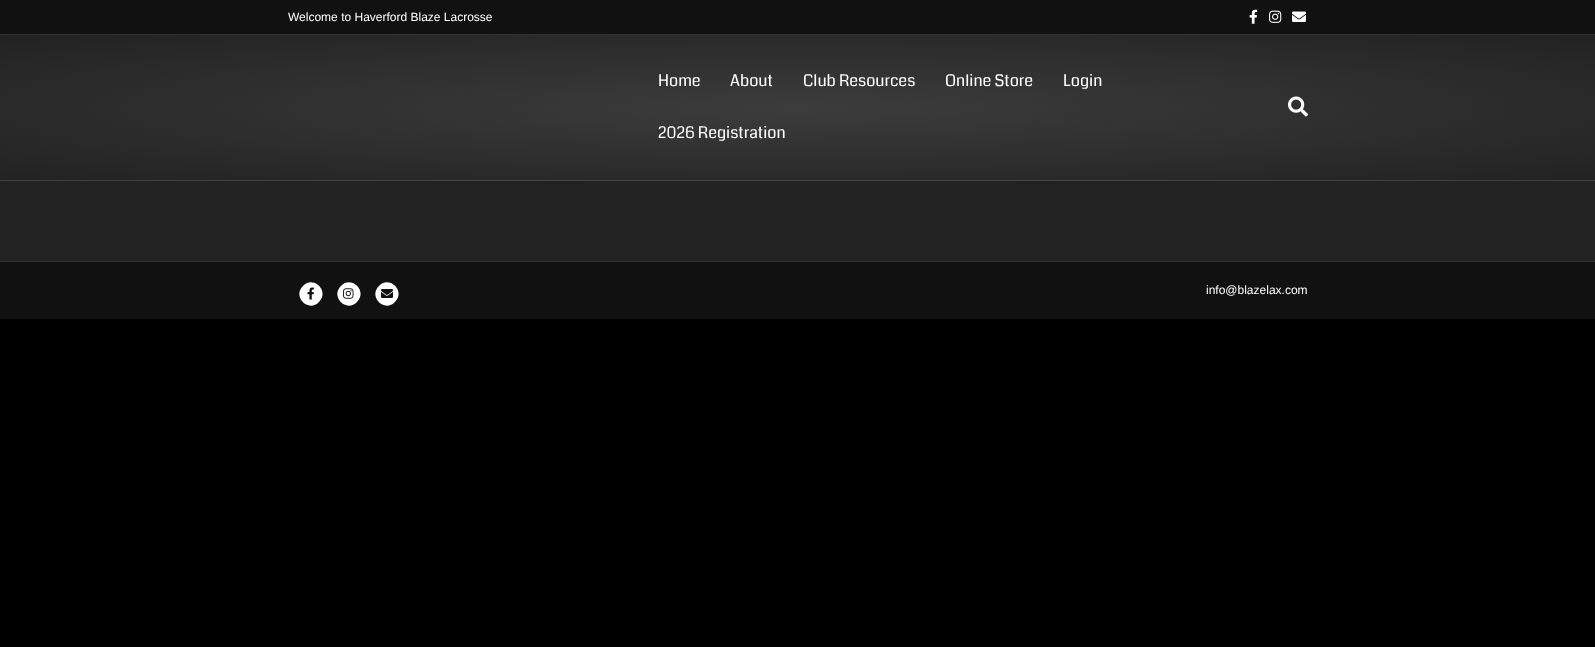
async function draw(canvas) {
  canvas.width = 1595
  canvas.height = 647
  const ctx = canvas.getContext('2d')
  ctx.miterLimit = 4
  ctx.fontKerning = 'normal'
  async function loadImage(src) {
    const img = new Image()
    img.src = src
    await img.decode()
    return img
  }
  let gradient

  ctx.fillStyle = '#000'
  ctx.fillRect(0, 0, 1595, 647)
  ctx.fillStyle = '#111'
  ctx.fillRect(0, 0, 1595, 34)
  ctx.fillStyle = '#323232'
  ctx.fillRect(0, 34, 1595, 1)
  ctx.font = '12px Liberation Sans'
  ctx.fillStyle = '#fff'
  ctx.fillText('Welcome to Haverford Blaze Lacrosse', 288, 21)
  ctx.drawImage(await loadImage('image0.png'), 1249, 9, 9, 15)
  ctx.drawImage(await loadImage('image1.png'), 1269, 10, 13, 13)
  ctx.drawImage(await loadImage('image2.png'), 1292, 11, 14, 11)
  gradient = ctx.createRadialGradient(798, 1182.76, 0, 798, 1182.76, 1128)
  gradient.addColorStop(0, '#3c3c3c')
  gradient.addColorStop(1, '#222')
  ctx.fillStyle = gradient
  ctx.beginPath()
  ctx.rect(0, 35, 1595, 145)
  ctx.save()
  ctx.clip()
  ctx.scale(1, 103 / 1128)
  ctx.fillRect(0, 0, 1595, 7086)
  ctx.restore()
  gradient = ctx.createRadialGradient(798, 1182.76, 0, 798, 1182.76, 1128)
  gradient.addColorStop(0, '#555')
  gradient.addColorStop(1, '#3f3f3f')
  ctx.fillStyle = gradient
  ctx.beginPath()
  ctx.rect(0, 180, 1595, 1)
  ctx.save()
  ctx.clip()
  ctx.scale(1, 103 / 1128)
  ctx.fillRect(0, 0, 1595, 7086)
  ctx.restore()
  ctx.font = '16px Coda'
  ctx.fillStyle = '#fff'
  ctx.fillText('Home', 658, 86)
  ctx.fillText('About', 730, 86)
  ctx.fillText('Club Resources', 803, 86)
  ctx.fillText('Online Store', 945, 86)
  ctx.fillText('Login', 1063, 86)
  ctx.fillText('2026 Registration', 658, 138)
  ctx.drawImage(await loadImage('image3.png'), 1288, 96, 20, 21)
  ctx.fillStyle = '#222'
  ctx.fillRect(0, 181, 1595, 80)
  ctx.fillStyle = '#111'
  ctx.fillRect(0, 262, 1595, 57)
  ctx.fillStyle = '#323232'
  ctx.fillRect(0, 261, 1595, 1)
  ctx.fillStyle = '#fff'
  ctx.beginPath()
  ctx.moveTo(303, 286)
  ctx.bezierCurveTo(313.5, 275, 330, 291.5, 319, 302)
  ctx.bezierCurveTo(308.5, 313, 292, 296.5, 303, 286)
  ctx.closePath()
  ctx.fill()
  ctx.drawImage(await loadImage('image4.png'), 307, 287, 7, 13)
  ctx.beginPath()
  ctx.moveTo(341, 286)
  ctx.bezierCurveTo(351.5, 275, 368, 291.5, 357, 302)
  ctx.bezierCurveTo(346.5, 313, 330, 296.5, 341, 286)
  ctx.closePath()
  ctx.fill()
  ctx.drawImage(await loadImage('image5.png'), 343, 288, 11, 11)
  ctx.beginPath()
  ctx.moveTo(379, 286)
  ctx.bezierCurveTo(389.5, 275, 406, 291.5, 395, 302)
  ctx.bezierCurveTo(384.5, 313, 368, 296.5, 379, 286)
  ctx.closePath()
  ctx.fill()
  ctx.drawImage(await loadImage('image6.png'), 381, 289, 12, 9)
  ctx.font = '12px Liberation Sans'
  ctx.fillText('info@blazelax.com', 1206, 294)
}

draw(document.querySelector('canvas'))
